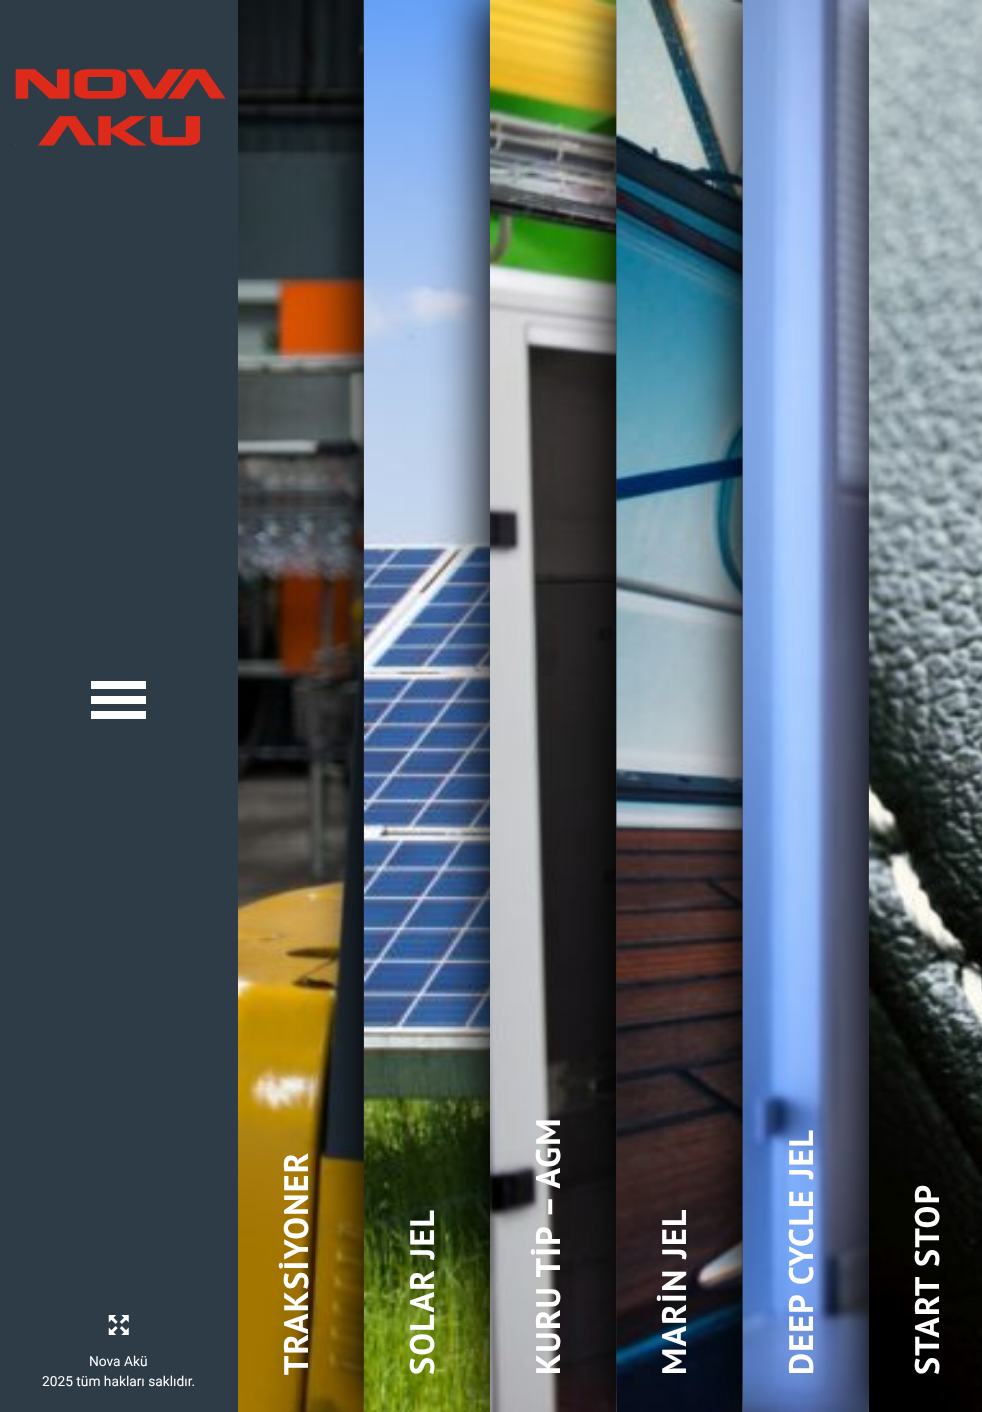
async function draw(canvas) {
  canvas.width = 982
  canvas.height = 1412
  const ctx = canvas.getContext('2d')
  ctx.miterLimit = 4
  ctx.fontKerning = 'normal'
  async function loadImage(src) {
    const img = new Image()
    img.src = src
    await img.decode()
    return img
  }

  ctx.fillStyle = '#fff'
  ctx.fillRect(0, 0, 982, 1412)
  ctx.fillStyle = '#000'
  ctx.filter = 'blur(25px)'
  ctx.beginPath()
  ctx.rect(230, -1, 129, 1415)
  ctx.fill()
  ctx.filter = 'none'
  ctx.fillStyle = '#2e3c47'
  ctx.fillRect(0, 0, 238, 1412)
  ctx.drawImage(await loadImage('image0.png'), 15, 69, 211, 77)
  ctx.fillStyle = '#fff'
  ctx.fillRect(91, 681, 55, 8)
  ctx.fillRect(91, 696, 55, 8)
  ctx.fillRect(91, 711, 55, 8)
  ctx.drawImage(await loadImage('image1.png'), 108, 1315, 21, 20)
  ctx.font = '13.75px Roboto'
  ctx.fillText('Nova Akü', 89, 1366)
  ctx.fillText('2025 tüm hakları saklıdır.', 42, 1386)
  ctx.drawImage(await loadImage('image2.png'), 238, 0, 126, 1412)
  ctx.letterSpacing = '1.25px'
  ctx.font = 'bold 34px PT Sans'
  ctx.save()
  ctx.translate(308, 1375)
  ctx.rotate(-90 * Math.PI / 180)
  ctx.fillText('TRAKSİYONER', 0, 0)
  ctx.restore()
  ctx.fillStyle = '#000'
  ctx.filter = 'blur(25px)'
  ctx.beginPath()
  ctx.rect(356, -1, 129, 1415)
  ctx.fill()
  ctx.filter = 'none'
  ctx.drawImage(await loadImage('image3.png'), 363, 0, 127, 1412)
  ctx.fillStyle = '#fff'
  ctx.save()
  ctx.translate(434, 1375)
  ctx.rotate(-90 * Math.PI / 180)
  ctx.fillText('SOLAR JEL', 0, 0)
  ctx.restore()
  ctx.fillStyle = '#000'
  ctx.filter = 'blur(25px)'
  ctx.beginPath()
  ctx.rect(483, -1, 128, 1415)
  ctx.fill()
  ctx.filter = 'none'
  ctx.drawImage(await loadImage('image4.png'), 490, 0, 127, 1412)
  ctx.fillStyle = '#fff'
  ctx.save()
  ctx.translate(560, 1375)
  ctx.rotate(-90 * Math.PI / 180)
  ctx.fillText('KURU TİP – AGM', 0, 0)
  ctx.restore()
  ctx.fillStyle = '#000'
  ctx.filter = 'blur(25px)'
  ctx.beginPath()
  ctx.rect(609, -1, 129, 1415)
  ctx.fill()
  ctx.filter = 'none'
  ctx.drawImage(await loadImage('image5.png'), 616, 0, 127, 1412)
  ctx.fillStyle = '#fff'
  ctx.save()
  ctx.translate(686, 1375)
  ctx.rotate(-90 * Math.PI / 180)
  ctx.fillText('MARİN JEL', 0, 0)
  ctx.restore()
  ctx.fillStyle = '#000'
  ctx.filter = 'blur(25px)'
  ctx.beginPath()
  ctx.rect(735, -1, 129, 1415)
  ctx.fill()
  ctx.filter = 'none'
  ctx.drawImage(await loadImage('image6.png'), 742, 0, 127, 1412)
  ctx.fillStyle = '#fff'
  ctx.save()
  ctx.translate(813, 1375)
  ctx.rotate(-90 * Math.PI / 180)
  ctx.fillText('DEEP CYCLE JEL', 0, 0)
  ctx.restore()
  ctx.fillStyle = '#000'
  ctx.filter = 'blur(25px)'
  ctx.beginPath()
  ctx.rect(861, -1, 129, 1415)
  ctx.fill()
  ctx.filter = 'none'
  ctx.drawImage(await loadImage('image7.png'), 868, 0, 114, 1412)
  ctx.fillStyle = '#fff'
  ctx.save()
  ctx.translate(939, 1375)
  ctx.rotate(-90 * Math.PI / 180)
  ctx.fillText('START STOP', 0, 0)
  ctx.restore()
}

draw(document.querySelector('canvas'))
